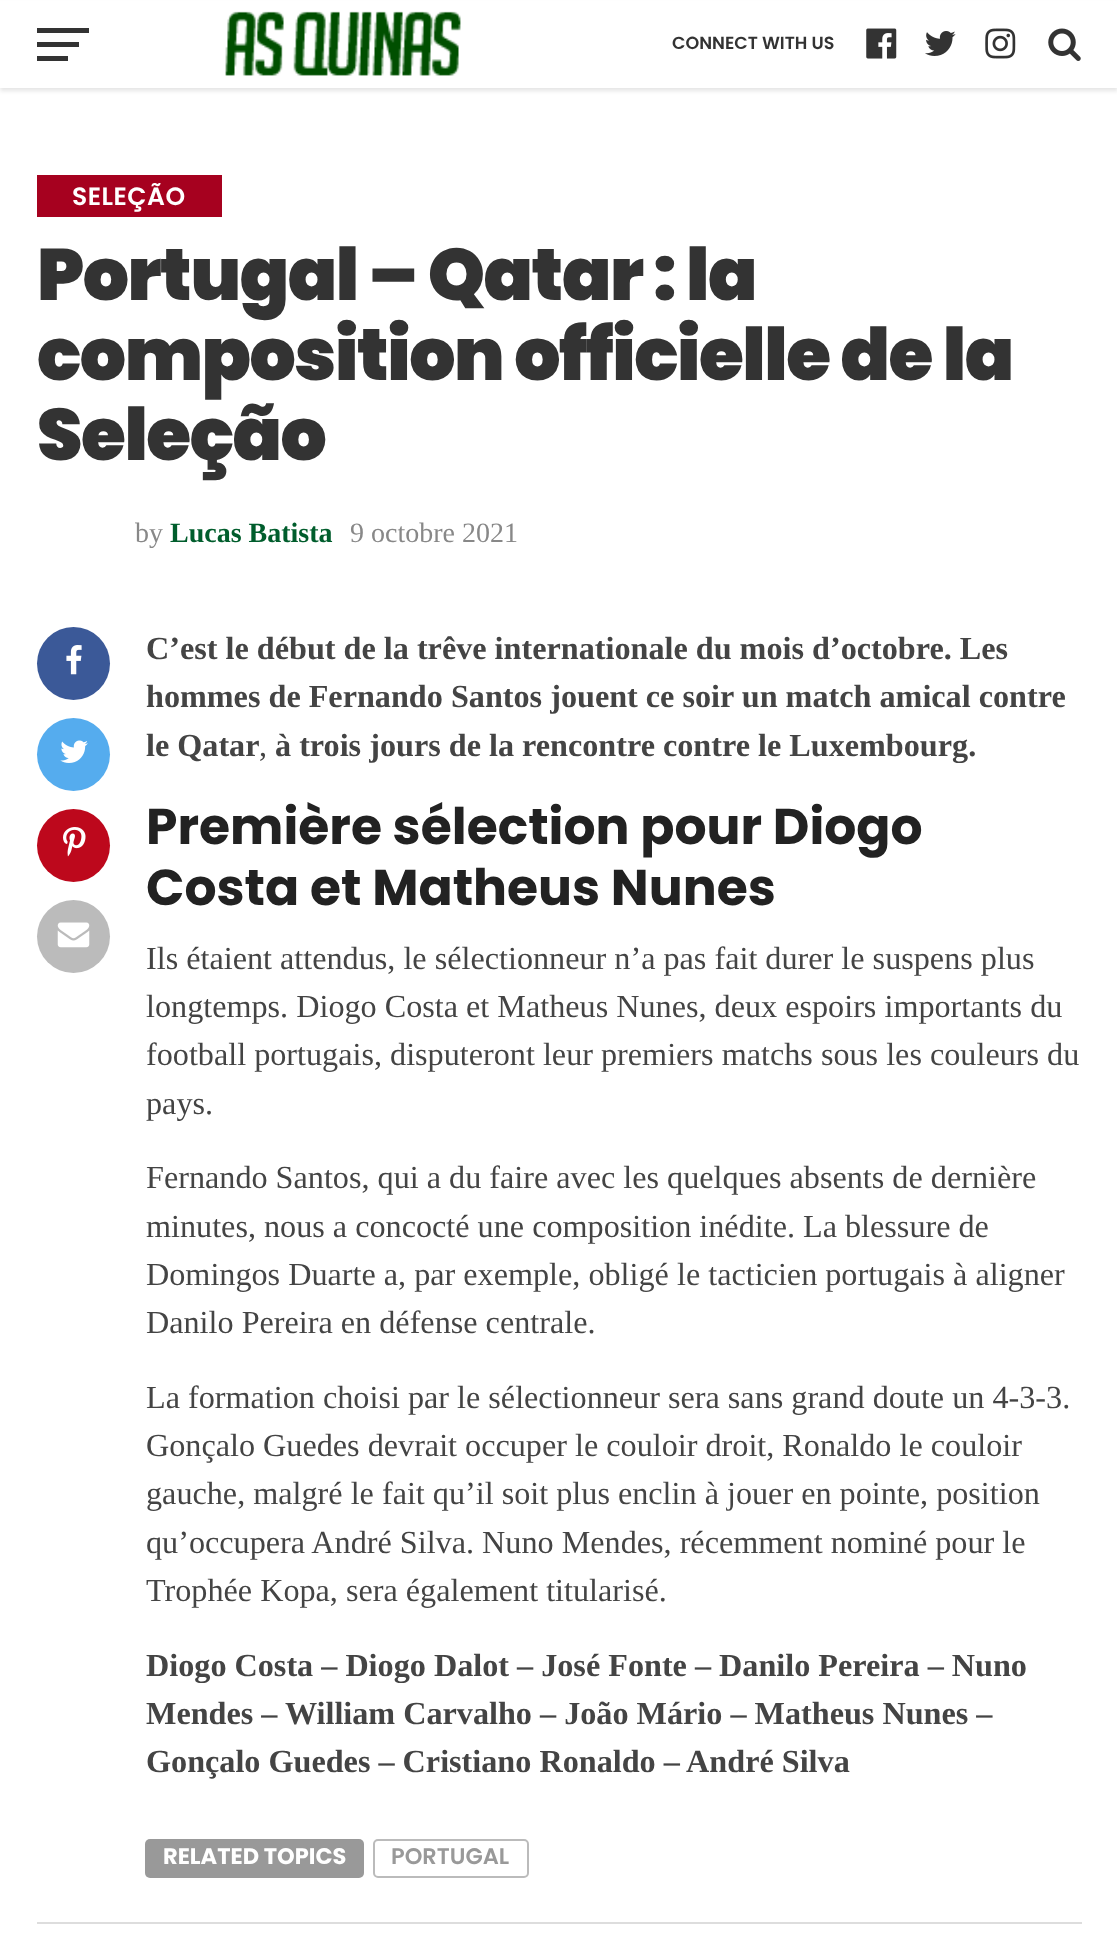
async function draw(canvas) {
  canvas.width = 1117
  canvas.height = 1957
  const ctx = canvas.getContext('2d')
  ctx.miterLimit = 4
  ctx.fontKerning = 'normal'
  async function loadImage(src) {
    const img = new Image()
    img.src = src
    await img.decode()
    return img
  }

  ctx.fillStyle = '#fff'
  ctx.fillRect(0, 0, 1117, 1957)
  ctx.fillStyle = '#0000001a'
  ctx.filter = 'blur(2px)'
  ctx.beginPath()
  ctx.rect(0, 4, 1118, 87)
  ctx.fill()
  ctx.filter = 'none'
  ctx.fillStyle = '#fff'
  ctx.fillRect(0, 1, 1117, 87)
  ctx.fillStyle = '#333'
  ctx.fillRect(37, 28, 52, 5)
  ctx.fillRect(37, 42, 42, 5)
  ctx.fillRect(37, 56, 31, 5)
  ctx.drawImage(await loadImage('image0.png'), 225, 11, 236, 65)
  ctx.font = '600 17.5px Poppins'
  ctx.fillText('CONNECT WITH US', 672, 49)
  ctx.drawImage(await loadImage('image1.png'), 866, 28, 31, 31)
  ctx.drawImage(await loadImage('image2.png'), 925, 31, 31, 25)
  ctx.drawImage(await loadImage('image3.png'), 985, 28, 31, 31)
  ctx.drawImage(await loadImage('image4.png'), 1048, 28, 33, 33)
  ctx.fillStyle = '#a6011f'
  ctx.fillRect(37, 175, 185, 42)
  ctx.letterSpacing = '0.5px'
  ctx.font = '600 25px Poppins'
  ctx.fillStyle = '#fff'
  ctx.fillText('SELEÇÃO', 72, 205)
  ctx.letterSpacing = '-1.45px'
  ctx.font = '900 72.75px Poppins'
  ctx.fillStyle = '#333'
  ctx.fillText('Portugal – Qatar : la', 37, 300)
  ctx.fillText('composition officielle de la', 37, 380)
  ctx.fillText('Seleção', 37, 460)
  ctx.letterSpacing = '0px'
  ctx.font = '28px Liberation Serif'
  ctx.fillStyle = '#888'
  ctx.fillText('by', 135, 542)
  ctx.font = 'bold 28px Liberation Serif'
  ctx.fillStyle = '#005d2c'
  ctx.fillText('Lucas Batista', 170, 542)
  ctx.font = '28px Liberation Serif'
  ctx.fillStyle = '#888'
  ctx.fillText('9 octobre 2021', 350, 542)
  ctx.fillStyle = '#3b5998'
  ctx.beginPath()
  ctx.arc(73.5, 663.5, 36.5, 0, 2 * Math.PI)
  ctx.fill()
  ctx.drawImage(await loadImage('image5.png'), 66, 645, 16, 30)
  ctx.fillStyle = '#55acee'
  ctx.beginPath()
  ctx.arc(73.5, 754.5, 36.5, 0, 2 * Math.PI)
  ctx.fill()
  ctx.drawImage(await loadImage('image6.png'), 60, 740, 28, 23)
  ctx.fillStyle = '#bd081c'
  ctx.beginPath()
  ctx.arc(73.5, 845.5, 36.5, 0, 2 * Math.PI)
  ctx.fill()
  ctx.drawImage(await loadImage('image7.png'), 63, 827, 23, 30)
  ctx.fillStyle = '#bbb'
  ctx.beginPath()
  ctx.arc(73.5, 936.5, 36.5, 0, 2 * Math.PI)
  ctx.fill()
  ctx.drawImage(await loadImage('image8.png'), 57, 922, 33, 26)
  ctx.font = 'bold 32.2px Liberation Serif'
  ctx.fillStyle = '#444'
  ctx.fillText('C’est le début de la trêve internationale du mois d’octobre. Les', 146, 659)
  ctx.fillText('hommes de Fernando Santos jouent ce soir un match amical contre', 146, 707)
  ctx.fillText('le Qatar', 146, 756)
  ctx.font = '32.2px Liberation Serif'
  ctx.fillText(',', 259, 756)
  ctx.font = 'bold 32.2px Liberation Serif'
  ctx.fillText('à trois jours de la rencontre contre le Luxembourg.', 275, 756)
  ctx.font = 'bold 50.4px Poppins'
  ctx.fillStyle = '#222'
  ctx.fillText('Première sélection pour Diogo', 146, 844)
  ctx.fillText('Costa et Matheus Nunes', 146, 905)
  ctx.font = '32.2px Liberation Serif'
  ctx.fillStyle = '#444'
  ctx.fillText('Ils étaient attendus, le sélectionneur n’a pas fait durer le suspens plus', 146, 969)
  ctx.fillText('longtemps. Diogo Costa et Matheus Nunes, deux espoirs importants du', 146, 1017)
  ctx.fillText('football portugais, disputeront leur premiers matchs sous les couleurs du', 146, 1065)
  ctx.fillText('pays.', 146, 1114)
  ctx.fillText('Fernando Santos, qui a du faire avec les quelques absents de dernière', 146, 1188)
  ctx.fillText('minutes, nous a concocté une composition inédite. La blessure de', 146, 1237)
  ctx.fillText('Domingos Duarte a, par exemple, obligé le tacticien portugais à aligner', 146, 1285)
  ctx.fillText('Danilo Pereira en défense centrale.', 146, 1333)
  ctx.fillText('La formation choisi par le sélectionneur sera sans grand doute un 4-3-3.', 146, 1408)
  ctx.fillText('Gonçalo Guedes devrait occuper le couloir droit, Ronaldo le couloir', 146, 1456)
  ctx.fillText('gauche, malgré le fait qu’il soit plus enclin à jouer en pointe, position', 146, 1504)
  ctx.fillText('qu’occupera André Silva. Nuno Mendes, récemment nominé pour le', 146, 1553)
  ctx.fillText('Trophée Kopa, sera également titularisé.', 146, 1601)
  ctx.font = 'bold 32.2px Liberation Serif'
  ctx.fillText('Diogo Costa – Diogo Dalot – José Fonte – Danilo Pereira – Nuno', 146, 1676)
  ctx.fillText('Mendes – William Carvalho – João Mário – Matheus Nunes –', 146, 1724)
  ctx.fillText('Gonçalo Guedes – Cristiano Ronaldo – André Silva', 146, 1772)
  ctx.fillStyle = '#999'
  ctx.beginPath()
  ctx.roundRect(145, 1839, 219, 39, 5)
  ctx.fill()
  ctx.font = 'bold 22.5px Poppins'
  ctx.fillStyle = '#fff'
  ctx.fillText('RELATED TOPICS', 163, 1864)
  ctx.beginPath()
  ctx.roundRect(374, 1840, 154, 37, 4)
  ctx.strokeStyle = '#bbb'
  ctx.lineWidth = 2
  ctx.stroke()
  ctx.font = '600 22.5px Poppins'
  ctx.fillStyle = '#999'
  ctx.fillText('PORTUGAL', 391, 1864)
  ctx.fillStyle = '#ddd'
  ctx.fillRect(37, 1922, 1045, 2)
}

draw(document.querySelector('canvas'))
